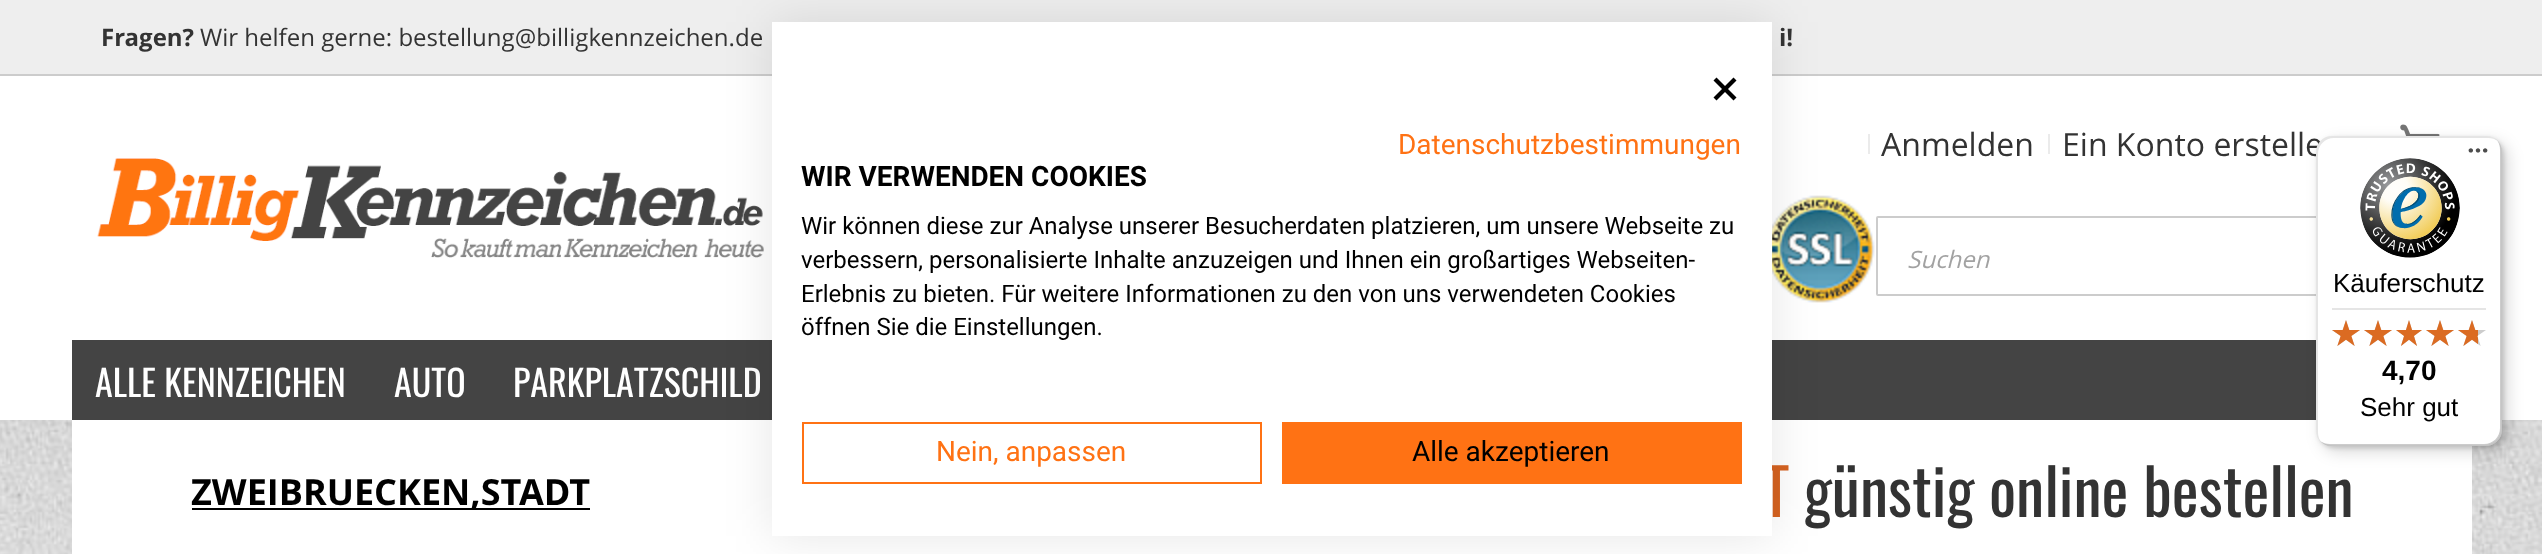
async function draw(canvas) {
  canvas.width = 2542
  canvas.height = 554
  const ctx = canvas.getContext('2d')
  ctx.miterLimit = 4
  ctx.fontKerning = 'normal'
  async function loadImage(src) {
    const img = new Image()
    img.src = src
    await img.decode()
    return img
  }

  ctx.fillStyle = '#fff'
  ctx.fillRect(0, 0, 2542, 554)
  ctx.drawImage(await loadImage('image0.png'), 0, 420, 2542, 134)
  ctx.fillStyle = '#eee'
  ctx.fillRect(0, 0, 2542, 74)
  ctx.fillStyle = '#ccc'
  ctx.fillRect(0, 74, 2542, 2)
  ctx.font = 'bold 24px Open Sans'
  ctx.fillStyle = '#333'
  ctx.fillText('Fragen?', 101, 46)
  ctx.font = '24px Open Sans'
  ctx.fillText('Wir helfen gerne: bestellung@billigkennzeichen.de', 200, 46)
  ctx.font = 'bold 24px Open Sans'
  ctx.fillText('i!', 1779, 46)
  ctx.drawImage(await loadImage('image1.png'), 97, 158, 667, 100)
  ctx.fillStyle = '#ebebeb'
  ctx.fillRect(1868, 134, 2, 20)
  ctx.font = '32px Open Sans'
  ctx.fillStyle = '#333'
  ctx.fillText('Anmelden', 1881, 156)
  ctx.fillStyle = '#ebebeb'
  ctx.fillRect(2048, 134, 2, 20)
  ctx.fillStyle = '#333'
  ctx.fillText('Ein Konto erstelle', 2062, 156)
  ctx.drawImage(await loadImage('image2.png'), 2400, 124, 40, 12)
  ctx.drawImage(await loadImage('image3.png'), 1772, 195, 103, 108)
  ctx.beginPath()
  ctx.roundRect(1877, 217, 564, 78, 1)
  ctx.strokeStyle = '#ccc'
  ctx.lineWidth = 2
  ctx.stroke()
  ctx.font = 'italic 24px Open Sans'
  ctx.fillStyle = '#a2a2a2'
  ctx.fillText('Suchen', 1907, 268)
  ctx.fillStyle = '#444'
  ctx.fillRect(72, 340, 2244, 80)
  ctx.font = '36px Oswald'
  ctx.fillStyle = '#fff'
  ctx.fillText('ALLE KENNZEICHEN', 95, 397)
  ctx.fillText('AUTO', 394, 397)
  ctx.fillText('PARKPLATZSCHILD', 513, 397)
  ctx.fillRect(72, 420, 2400, 134)
  ctx.fillStyle = '#000'
  ctx.fillRect(192, 508, 398, 2)
  ctx.font = 'bold 36px Open Sans'
  ctx.fillText('ZWEIBRUECKEN,STADT', 191, 505)
  ctx.font = '64px Oswald'
  ctx.fillStyle = '#d66321'
  ctx.fillText('T', 1763, 517)
  ctx.fillStyle = '#333'
  ctx.fillText('günstig online bestellen', 1804, 517)
  ctx.fillStyle = '#0000001a'
  ctx.filter = 'blur(24px)'
  ctx.beginPath()
  ctx.rect(772, 22, 1000, 514)
  ctx.fill()
  ctx.filter = 'none'
  ctx.fillStyle = '#fff'
  ctx.fillRect(772, 22, 1000, 514)
  ctx.fillStyle = '#000'
  ctx.beginPath()
  ctx.moveTo(1733.5, 77.5)
  ctx.lineTo(1736.5, 80.5)
  ctx.lineTo(1716.5, 100.5)
  ctx.lineTo(1713.5, 97.5)
  ctx.closePath()
  ctx.fill()
  ctx.beginPath()
  ctx.moveTo(1713.5, 80.5)
  ctx.lineTo(1716.5, 77.5)
  ctx.lineTo(1736.5, 97.5)
  ctx.lineTo(1733.5, 100.5)
  ctx.closePath()
  ctx.fill()
  ctx.font = '28px Roboto'
  ctx.fillStyle = '#ff7214'
  ctx.fillText('Datenschutzbestimmungen', 1398, 154)
  ctx.font = 'bold 28px Roboto'
  ctx.fillStyle = '#000'
  ctx.fillText('WIR VERWENDEN COOKIES', 801, 186)
  ctx.font = '24px Roboto'
  ctx.fillText('Wir können diese zur Analyse unserer Besucherdaten platzieren, um unsere Webseite zu', 801, 234)
  ctx.fillText('verbessern, personalisierte Inhalte anzuzeigen und Ihnen ein großartiges Webseiten-', 801, 268)
  ctx.fillText('Erlebnis zu bieten. Für weitere Informationen zu den von uns verwendeten Cookies', 801, 302)
  ctx.fillText('öffnen Sie die Einstellungen.', 801, 335)
  ctx.strokeStyle = '#ff7214'
  ctx.strokeRect(803, 423, 458, 60)
  ctx.font = '28px Roboto'
  ctx.fillStyle = '#ff7214'
  ctx.fillText('Nein, anpassen', 936, 461)
  ctx.fillRect(1282, 422, 460, 62)
  ctx.fillStyle = '#000'
  ctx.fillText('Alle akzeptieren', 1412, 461)
  ctx.fillStyle = '#00000026'
  ctx.filter = 'blur(8px)'
  ctx.beginPath()
  ctx.roundRect(2322, 142, 186, 310, 16)
  ctx.fill()
  ctx.filter = 'none'
  ctx.filter = 'blur(2px)'
  ctx.beginPath()
  ctx.roundRect(2318, 138, 186, 310, 16)
  ctx.fill()
  ctx.filter = 'none'
  ctx.fillStyle = '#fff'
  ctx.beginPath()
  ctx.roundRect(2316, 136, 186, 310, 16)
  ctx.fill()
  ctx.fillStyle = '#0000001a'
  ctx.beginPath()
  ctx.moveTo(2334, 138)
  ctx.lineTo(2488, 138)
  ctx.bezierCurveTo(2492, 138, 2495, 139, 2498, 141)
  ctx.bezierCurveTo(2495, 138, 2491, 136, 2486, 136)
  ctx.lineTo(2332, 136)
  ctx.bezierCurveTo(2323, 136, 2316, 143, 2316, 152)
  ctx.lineTo(2316, 430)
  ctx.bezierCurveTo(2316, 435, 2318, 439, 2321, 442)
  ctx.bezierCurveTo(2319, 439, 2318, 436, 2318, 432)
  ctx.lineTo(2318, 154)
  ctx.bezierCurveTo(2318, 145, 2325, 138, 2334, 138)
  ctx.closePath()
  ctx.fill()
  ctx.fillStyle = '#00000033'
  ctx.beginPath()
  ctx.moveTo(2320, 441)
  ctx.bezierCurveTo(2323, 444, 2327, 446, 2332, 446)
  ctx.lineTo(2486, 446)
  ctx.bezierCurveTo(2495, 446, 2502, 439, 2502, 430)
  ctx.lineTo(2502, 152)
  ctx.bezierCurveTo(2502, 147, 2500, 143, 2497, 140)
  ctx.bezierCurveTo(2499, 143, 2500, 146, 2500, 150)
  ctx.lineTo(2500, 428)
  ctx.bezierCurveTo(2500, 437, 2493, 444, 2484, 444)
  ctx.lineTo(2330, 444)
  ctx.bezierCurveTo(2326, 444, 2323, 443, 2320, 441)
  ctx.closePath()
  ctx.fill()
  ctx.fillStyle = '#32323233'
  ctx.beginPath()
  ctx.moveTo(2321, 441)
  ctx.bezierCurveTo(2324, 444, 2328, 446, 2332, 446)
  ctx.lineTo(2486, 446)
  ctx.bezierCurveTo(2495, 446, 2502, 439, 2502, 430)
  ctx.lineTo(2502, 152)
  ctx.bezierCurveTo(2502, 148, 2500, 144, 2497, 141)
  ctx.bezierCurveTo(2500, 144, 2501, 147, 2501, 151)
  ctx.lineTo(2501, 429)
  ctx.bezierCurveTo(2501, 438, 2494, 445, 2485, 445)
  ctx.lineTo(2331, 445)
  ctx.bezierCurveTo(2327, 445, 2324, 444, 2321, 441)
  ctx.closePath()
  ctx.fill()
  ctx.fillStyle = '#ffffff4d'
  ctx.beginPath()
  ctx.moveTo(2321, 441)
  ctx.bezierCurveTo(2324, 444, 2328, 446, 2332, 446)
  ctx.lineTo(2486, 446)
  ctx.bezierCurveTo(2495, 446, 2502, 439, 2502, 430)
  ctx.lineTo(2502, 152)
  ctx.bezierCurveTo(2502, 148, 2500, 144, 2497, 141)
  ctx.bezierCurveTo(2500, 144, 2501, 147, 2501, 151)
  ctx.lineTo(2501, 429)
  ctx.bezierCurveTo(2501, 438, 2494, 445, 2485, 445)
  ctx.lineTo(2331, 445)
  ctx.bezierCurveTo(2327, 445, 2324, 444, 2321, 441)
  ctx.closePath()
  ctx.fill()
  ctx.drawImage(await loadImage('image4.png'), 2468, 148, 20, 5)
  ctx.drawImage(await loadImage('image5.png'), 2360, 158, 100, 100)
  ctx.font = '26px Liberation Sans'
  ctx.fillStyle = '#000'
  ctx.fillText('Käuferschutz', 2333, 292)
  ctx.fillStyle = '#e5e5e5'
  ctx.fillRect(2332, 308, 154, 2)
  ctx.drawImage(await loadImage('image6.png'), 2332, 320, 28, 26)
  ctx.drawImage(await loadImage('image6.png'), 2364, 320, 28, 26)
  ctx.drawImage(await loadImage('image7.png'), 2396, 320, 26, 26)
  ctx.drawImage(await loadImage('image6.png'), 2426, 320, 28, 26)
  ctx.drawImage(await loadImage('image6.png'), 2458, 320, 28, 26)
  ctx.drawImage(await loadImage('image8.png'), 2332, 320, 28, 26)
  ctx.drawImage(await loadImage('image8.png'), 2364, 320, 28, 26)
  ctx.drawImage(await loadImage('image9.png'), 2396, 320, 26, 26)
  ctx.drawImage(await loadImage('image8.png'), 2426, 320, 28, 26)
  ctx.drawImage(await loadImage('image10.png'), 2458, 320, 20, 26)
  ctx.font = 'bold 28px Liberation Sans'
  ctx.fillStyle = '#000'
  ctx.fillText('4,70', 2382, 380)
  ctx.font = '26px Liberation Sans'
  ctx.fillText('Sehr gut', 2360, 416)
}

draw(document.querySelector('canvas'))
